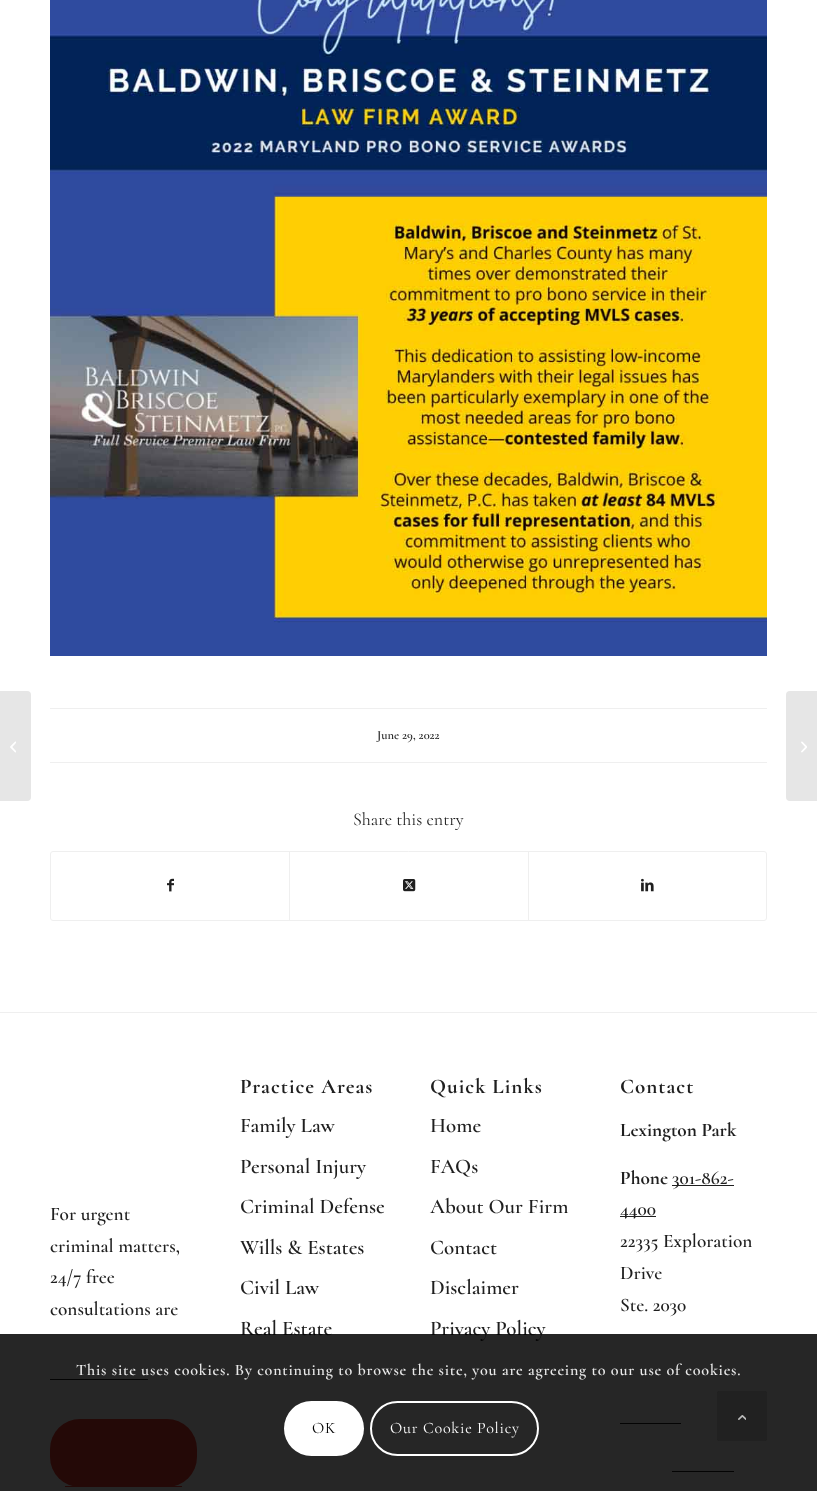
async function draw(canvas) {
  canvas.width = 817
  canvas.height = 1491
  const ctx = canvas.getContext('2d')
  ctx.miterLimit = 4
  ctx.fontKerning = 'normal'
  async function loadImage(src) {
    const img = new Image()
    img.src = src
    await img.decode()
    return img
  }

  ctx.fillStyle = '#fff'
  ctx.fillRect(0, 0, 817, 1491)
  ctx.fillStyle = '#e6e6e6'
  ctx.beginPath()
  ctx.roundRect(0, 691, 31, 110, [0, 4, 4, 0])
  ctx.fill()
  ctx.drawImage(await loadImage('image0.png'), 10, 741, 6, 12)
  ctx.drawImage(await loadImage('image1.png'), 50, 0, 717, 656)
  ctx.fillStyle = '#efefef'
  ctx.fillRect(50, 708, 717, 1)
  ctx.fillRect(50, 762, 717, 1)
  ctx.font = '600 12.5px Cormorant'
  ctx.fillStyle = '#1f1f1f'
  ctx.fillText('June 29, 2022', 377, 739)
  ctx.font = '18px Cormorant'
  ctx.fillText('Share this entry', 353, 825)
  ctx.beginPath()
  ctx.roundRect(50.5, 851.5, 716, 69, 2.5)
  ctx.strokeStyle = '#efefef'
  ctx.stroke()
  ctx.drawImage(await loadImage('image2.png'), 167, 878, 7, 14)
  ctx.fillStyle = '#efefef'
  ctx.fillRect(289, 852, 1, 68)
  ctx.drawImage(await loadImage('image3.png'), 403, 879, 13, 13)
  ctx.fillRect(528, 852, 1, 68)
  ctx.drawImage(await loadImage('image4.png'), 641, 878, 13, 14)
  ctx.fillRect(0, 1012, 817, 1)
  ctx.font = '600 19.25px Cormorant'
  ctx.fillStyle = '#1f1f1f'
  ctx.fillText('For urgent', 50, 1220)
  ctx.fillText('criminal matters,', 50, 1252)
  ctx.fillText('24/7 free', 50, 1283)
  ctx.fillText('consultations are', 50, 1315)
  ctx.fillRect(50, 1379, 98, 1)
  ctx.fillStyle = '#ef3e33'
  ctx.beginPath()
  ctx.roundRect(50, 1419, 147, 68, 30)
  ctx.fill()
  ctx.fillRect(65, 1486, 117, 1)
  ctx.letterSpacing = '1px'
  ctx.font = 'bold 21px Cormorant'
  ctx.fillStyle = '#1f1f1f'
  ctx.fillText('Practice Areas', 240, 1093)
  ctx.letterSpacing = '0px'
  ctx.font = '600 21px Cormorant'
  ctx.fillText('Family Law', 240, 1132)
  ctx.fillText('Personal Injury', 240, 1173)
  ctx.fillText('Criminal Defense', 240, 1213)
  ctx.fillText('Wills & Estates', 240, 1254)
  ctx.fillText('Civil Law', 240, 1294)
  ctx.fillText('Real Estate', 240, 1335)
  ctx.letterSpacing = '1px'
  ctx.font = 'bold 21px Cormorant'
  ctx.fillText('Quick Links', 430, 1093)
  ctx.letterSpacing = '0px'
  ctx.font = '600 21px Cormorant'
  ctx.fillText('Home', 430, 1132)
  ctx.fillText('FAQs', 430, 1173)
  ctx.fillText('About Our Firm', 430, 1213)
  ctx.fillText('Contact', 430, 1254)
  ctx.fillText('Disclaimer', 430, 1294)
  ctx.fillText('Privacy Policy', 430, 1335)
  ctx.letterSpacing = '1px'
  ctx.font = 'bold 21px Cormorant'
  ctx.fillText('Contact', 620, 1093)
  ctx.letterSpacing = '0px'
  ctx.font = 'bold 19.25px Cormorant'
  ctx.fillText('Lexington Park', 620, 1136)
  ctx.fillText('Phone', 620, 1184)
  ctx.fillRect(672, 1185, 62, 1)
  ctx.font = '600 19.25px Cormorant'
  ctx.fillText('301-862-', 672, 1184)
  ctx.fillRect(620, 1216, 36, 1)
  ctx.fillText('4400', 620, 1215)
  ctx.fillText('22335 Exploration', 620, 1247)
  ctx.fillText('Drive', 620, 1279)
  ctx.fillText('Ste. 2030', 620, 1311)
  ctx.fillRect(620, 1423, 61, 1)
  ctx.fillRect(672, 1471, 62, 1)
  ctx.fillStyle = '#e6e6e6'
  ctx.beginPath()
  ctx.roundRect(786, 691, 31, 110, [4, 0, 0, 4])
  ctx.fill()
  ctx.drawImage(await loadImage('image5.png'), 801, 741, 6, 12)
  ctx.fillStyle = '#000000d9'
  ctx.fillRect(0, 1334, 817, 157)
  ctx.letterSpacing = '0.8px'
  ctx.font = '600 16px Cormorant'
  ctx.fillStyle = '#e9e9e9'
  ctx.fillText('This site uses cookies. By continuing to browse the site, you are agreeing to our use of cookies.', 76, 1375)
  ctx.fillStyle = '#fff'
  ctx.beginPath()
  ctx.roundRect(284, 1401, 80, 55, 27.5)
  ctx.fill()
  ctx.font = '16px Cormorant'
  ctx.fillStyle = '#000'
  ctx.fillText('OK', 312, 1433)
  ctx.beginPath()
  ctx.roundRect(371, 1402, 167, 53, 26.5)
  ctx.strokeStyle = '#fff'
  ctx.lineWidth = 2
  ctx.stroke()
  ctx.fillStyle = '#fff'
  ctx.fillText('Our Cookie Policy', 390, 1433)
  ctx.fillStyle = '#212121'
  ctx.beginPath()
  ctx.roundRect(717, 1391, 50, 50, 2)
  ctx.fill()
  ctx.drawImage(await loadImage('image6.png'), 738, 1415, 8, 5)
}

draw(document.querySelector('canvas'))
